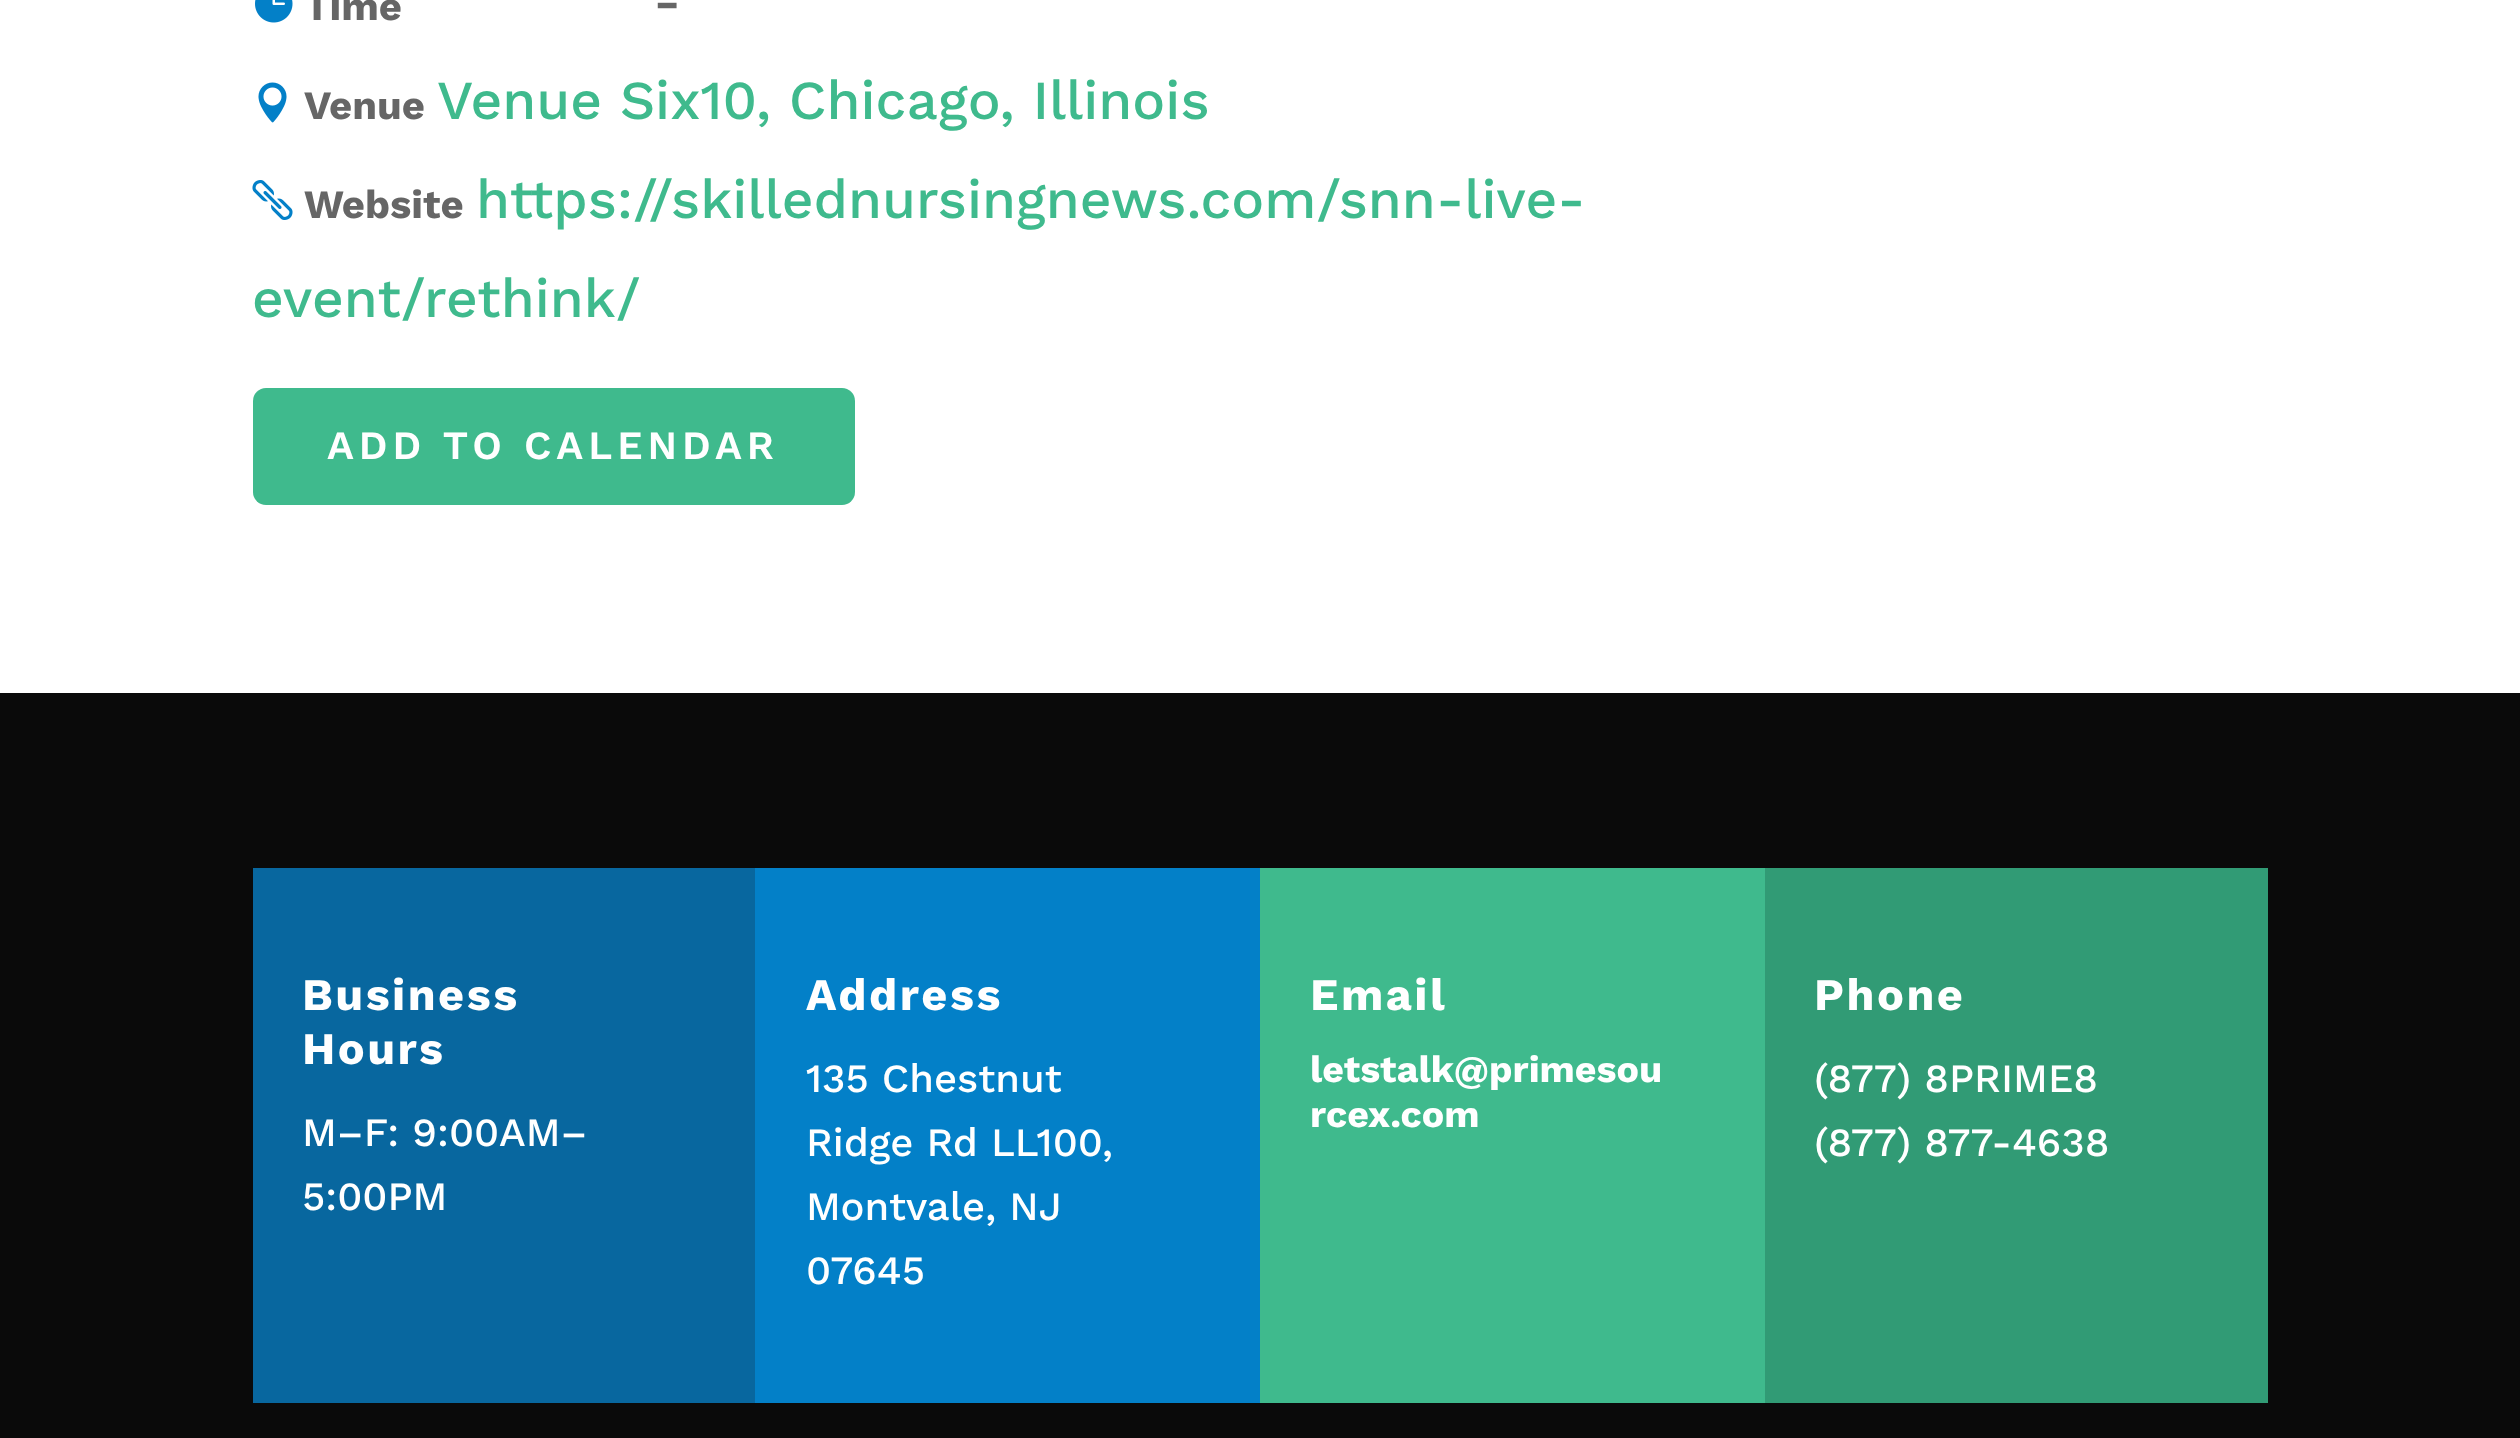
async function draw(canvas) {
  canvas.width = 2520
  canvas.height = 1438
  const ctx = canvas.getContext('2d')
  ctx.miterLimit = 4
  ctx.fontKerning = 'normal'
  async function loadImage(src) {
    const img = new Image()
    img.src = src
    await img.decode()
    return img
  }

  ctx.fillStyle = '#fff'
  ctx.fillRect(0, 0, 2520, 1438)
  ctx.drawImage(await loadImage('image0.png'), 255, 0, 38, 23)
  ctx.font = 'bold 40px Work Sans'
  ctx.fillStyle = '#666'
  ctx.fillText('Time', 304, 20)
  ctx.font = '500 55px Work Sans'
  ctx.fillText('-', 653, 20)
  ctx.drawImage(await loadImage('image1.png'), 258, 82, 29, 41)
  ctx.font = 'bold 40px Work Sans'
  ctx.fillText('Venue', 304, 119)
  ctx.font = '500 55px Work Sans'
  ctx.fillStyle = '#3fba8d'
  ctx.fillText('Venue Six10, Chicago, Illinois', 437, 119)
  ctx.drawImage(await loadImage('image2.png'), 252, 180, 41, 40)
  ctx.font = 'bold 40px Work Sans'
  ctx.fillStyle = '#666'
  ctx.fillText('Website', 304, 218)
  ctx.font = '500 55px Work Sans'
  ctx.fillStyle = '#3fba8d'
  ctx.fillText('https://skillednursingnews.com/snn-live-', 476, 218)
  ctx.fillText('event/rethink/', 252, 317)
  ctx.beginPath()
  ctx.roundRect(253, 388, 602, 117, 13)
  ctx.fill()
  ctx.letterSpacing = '5px'
  ctx.font = '600 40px Work Sans'
  ctx.fillStyle = '#fff'
  ctx.fillText('ADD TO CALENDAR', 327, 459)
  ctx.fillStyle = '#0a0a0a'
  ctx.fillRect(0, 693, 2520, 745)
  ctx.fillStyle = '#08679f'
  ctx.fillRect(253, 868, 502, 535)
  ctx.letterSpacing = '2.5px'
  ctx.font = 'bold 45px Work Sans'
  ctx.fillStyle = '#fff'
  ctx.fillText('Business', 302, 1010)
  ctx.fillText('Hours', 302, 1064)
  ctx.letterSpacing = '0px'
  ctx.font = '500 40px Work Sans'
  ctx.fillText('M–F: 9:00AM–', 302, 1146)
  ctx.fillText('5:00PM', 302, 1210)
  ctx.fillStyle = '#0380c8'
  ctx.fillRect(755, 868, 505, 535)
  ctx.letterSpacing = '2.5px'
  ctx.font = 'bold 45px Work Sans'
  ctx.fillStyle = '#fff'
  ctx.fillText('Address', 806, 1010)
  ctx.letterSpacing = '0px'
  ctx.font = '500 40px Work Sans'
  ctx.fillText('135 Chestnut', 806, 1092)
  ctx.fillText('Ridge Rd LL100,', 806, 1156)
  ctx.fillText('Montvale, NJ', 806, 1220)
  ctx.fillText('07645', 806, 1284)
  ctx.fillStyle = '#3fba8d'
  ctx.fillRect(1260, 868, 505, 535)
  ctx.letterSpacing = '2.5px'
  ctx.font = 'bold 45px Work Sans'
  ctx.fillStyle = '#fff'
  ctx.fillText('Email', 1310, 1010)
  ctx.letterSpacing = '0px'
  ctx.font = 'bold 37.5px Work Sans'
  ctx.fillText('letstalk@primesou', 1310, 1082)
  ctx.fillText('rcex.com', 1310, 1127)
  ctx.fillStyle = '#319b75'
  ctx.fillRect(1765, 868, 503, 535)
  ctx.letterSpacing = '2.5px'
  ctx.font = 'bold 45px Work Sans'
  ctx.fillStyle = '#fff'
  ctx.fillText('Phone', 1814, 1010)
  ctx.letterSpacing = '0px'
  ctx.font = '500 40px Work Sans'
  ctx.fillText('(877) 8PRIME8', 1814, 1092)
  ctx.fillText('(877) 877-4638', 1814, 1156)
}

draw(document.querySelector('canvas'))
